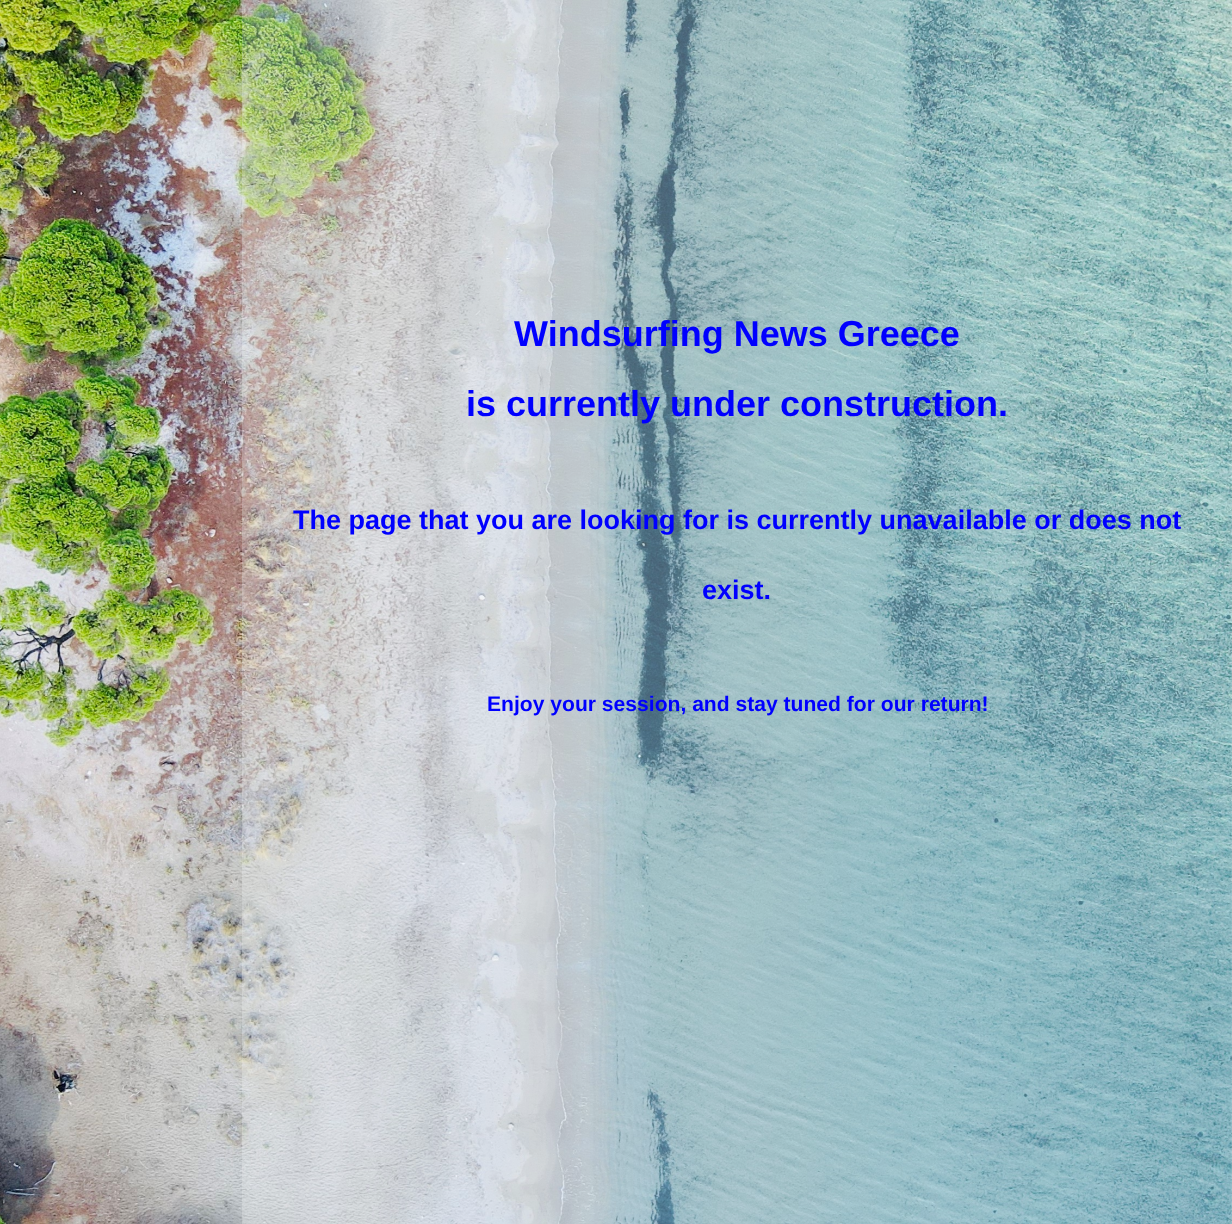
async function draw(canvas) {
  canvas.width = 1232
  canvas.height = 1224
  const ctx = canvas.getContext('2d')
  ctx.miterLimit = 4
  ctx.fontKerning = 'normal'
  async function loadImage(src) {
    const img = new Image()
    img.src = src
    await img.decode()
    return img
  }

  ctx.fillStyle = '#fff'
  ctx.fillRect(0, 0, 1232, 1224)
  ctx.drawImage(await loadImage('image0.png'), 0, 0, 1232, 1224)
  ctx.fillStyle = '#f1f6f64a'
  ctx.fillRect(242, 0, 990, 1224)
  ctx.font = 'bold 36px Liberation Sans'
  ctx.fillStyle = '#00f'
  ctx.fillText('Windsurfing News Greece', 514, 346)
  ctx.fillText('is currently under construction.', 466, 416)
  ctx.font = 'bold 27px Liberation Sans'
  ctx.fillText('The page that you are looking for is currently unavailable or does not', 293, 529)
  ctx.fillText('exist.', 702, 599)
  ctx.font = 'bold 21.1px Liberation Sans'
  ctx.fillText('Enjoy your session, and stay tuned for our return!', 487, 711)
}

draw(document.querySelector('canvas'))
